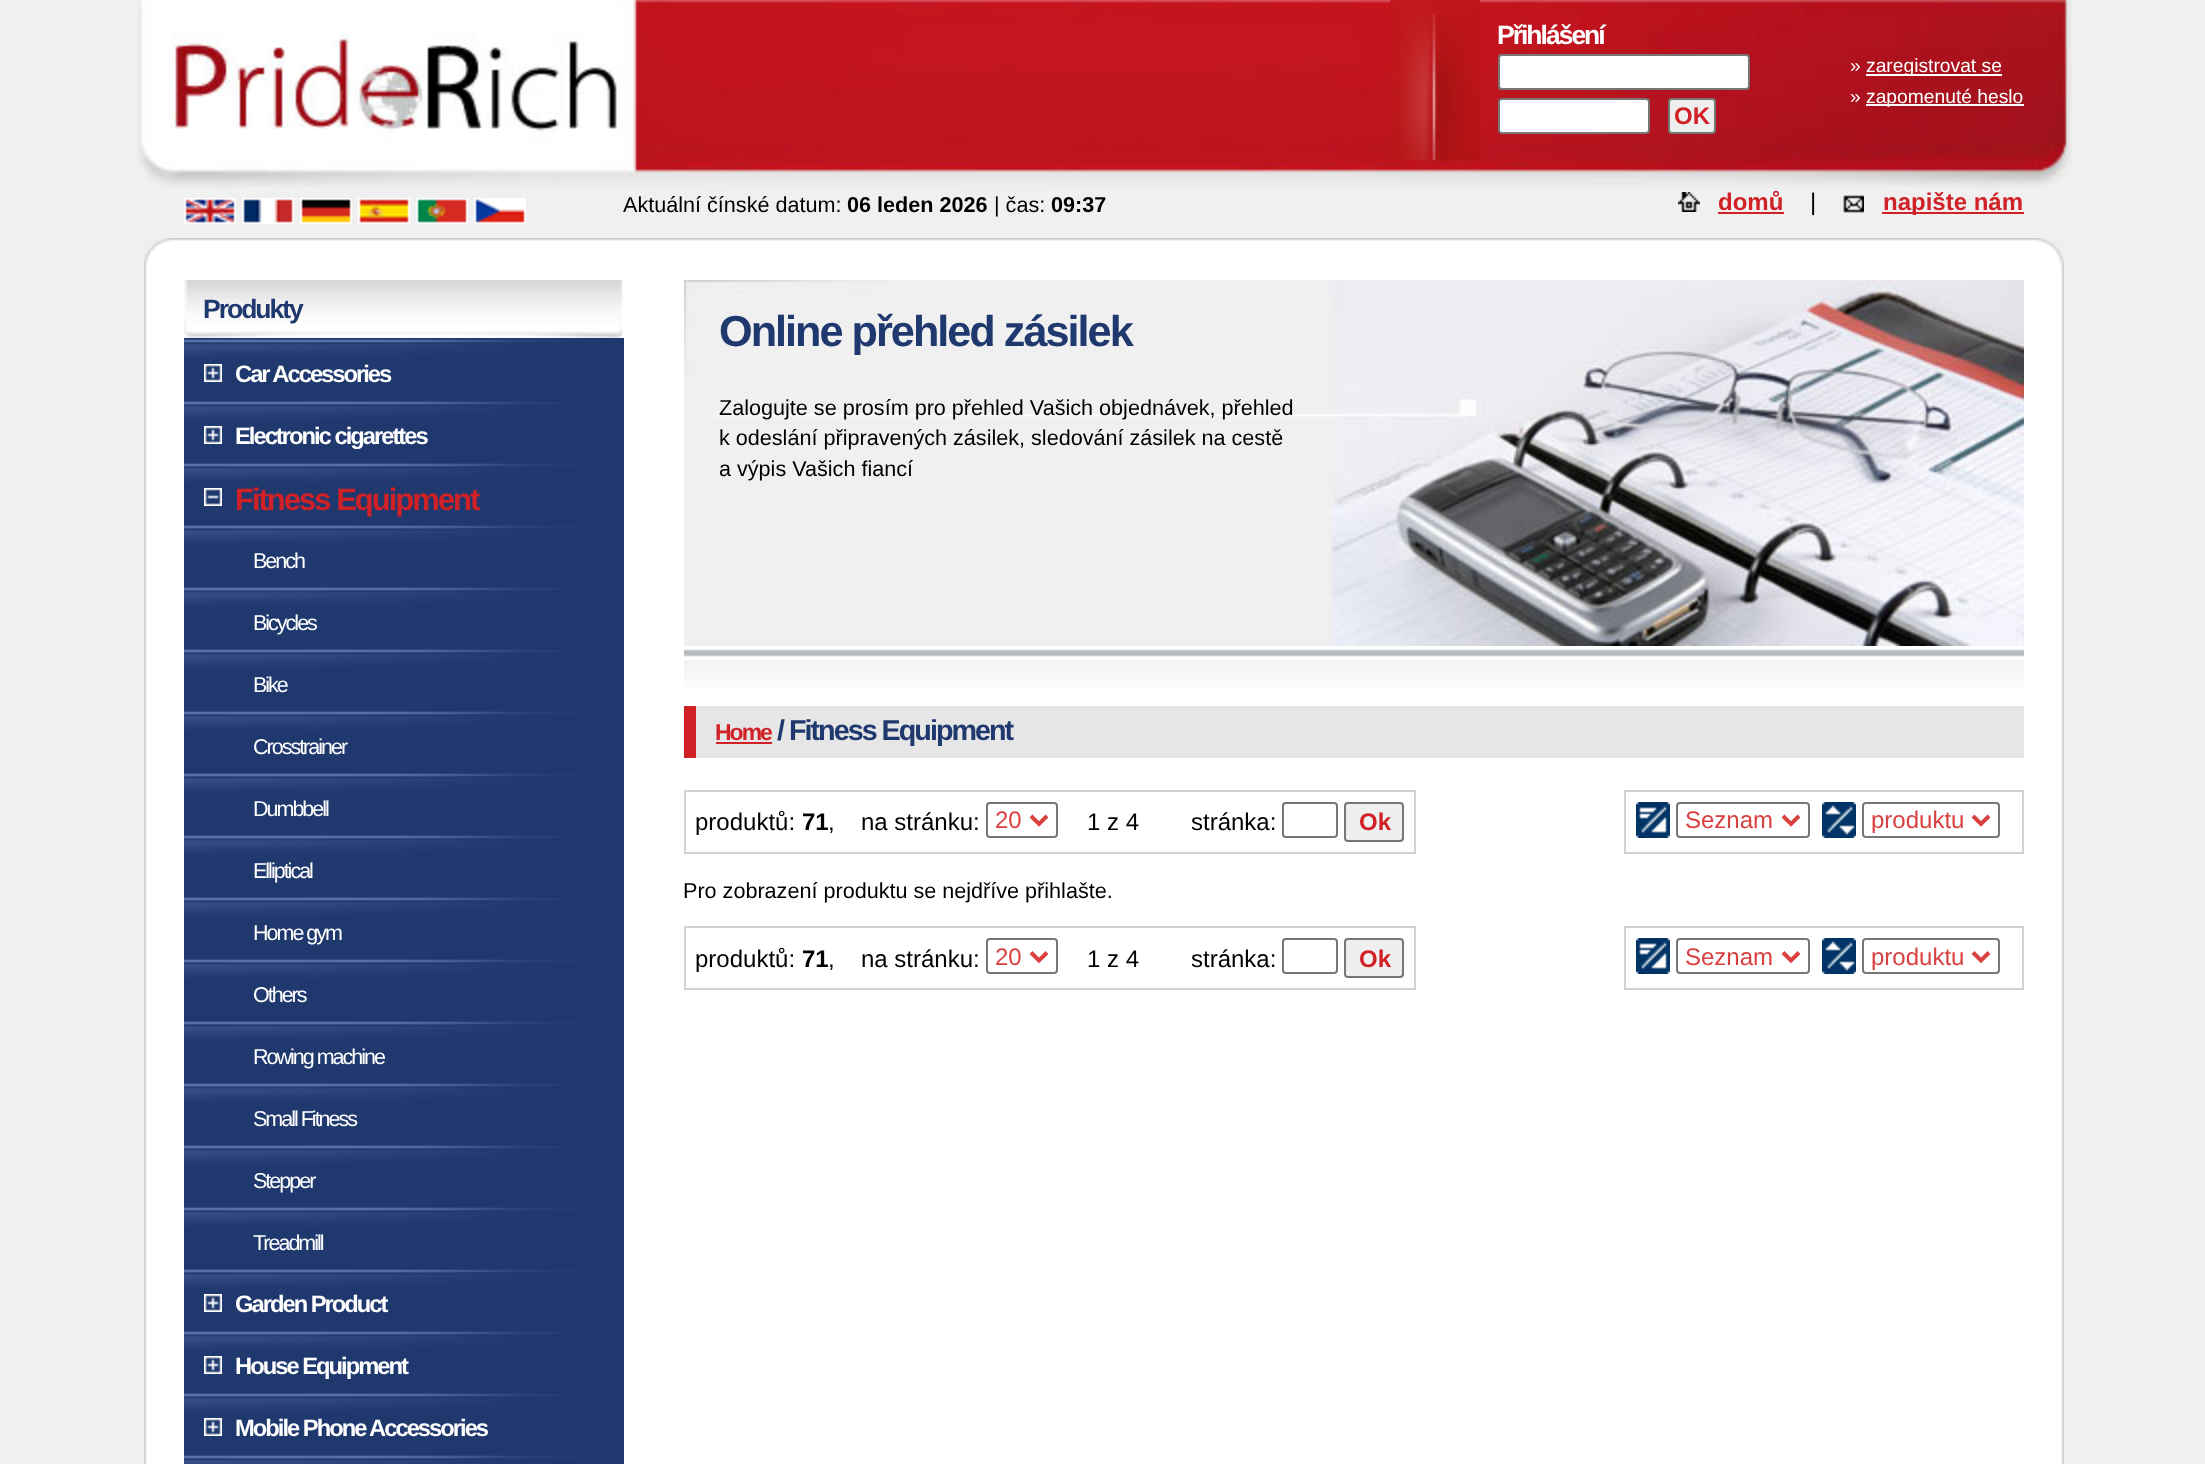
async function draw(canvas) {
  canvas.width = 2205
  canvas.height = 1464
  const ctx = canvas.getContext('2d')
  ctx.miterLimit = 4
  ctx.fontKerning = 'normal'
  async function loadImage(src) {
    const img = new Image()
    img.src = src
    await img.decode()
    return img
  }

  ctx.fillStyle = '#f0f0f0'
  ctx.fillRect(0, 0, 2205, 1464)
  ctx.drawImage(await loadImage('image0.png'), 137, 0, 1939, 188)
  ctx.drawImage(await loadImage('image1.png'), 1390, 0, 90, 160)
  ctx.letterSpacing = '-2px'
  ctx.font = 'bold 26.5px Liberation Sans'
  ctx.fillStyle = '#fff'
  ctx.fillText('Přihlášení', 1497, 44)
  ctx.beginPath()
  ctx.roundRect(1499, 55, 250, 34, 3)
  ctx.fill()
  ctx.strokeStyle = '#767676'
  ctx.lineWidth = 2
  ctx.stroke()
  ctx.letterSpacing = '0px'
  ctx.font = '19.25px Liberation Sans'
  ctx.fillText('»', 1850, 72)
  ctx.fillRect(1866, 74, 136, 2)
  ctx.fillText('zaregistrovat se', 1866, 72)
  ctx.fillText('»', 1850, 103)
  ctx.fillRect(1866, 104, 158, 2)
  ctx.fillText('zapomenuté heslo', 1866, 103)
  ctx.beginPath()
  ctx.roundRect(1499, 99, 150, 34, 3)
  ctx.fill()
  ctx.stroke()
  ctx.fillStyle = '#efefef'
  ctx.beginPath()
  ctx.roundRect(1669, 99, 46, 34, 3)
  ctx.fill()
  ctx.stroke()
  ctx.font = 'bold 24px Liberation Sans'
  ctx.fillStyle = '#d02126'
  ctx.fillText('OK', 1674, 124)
  ctx.drawImage(await loadImage('image2.png'), 184, 198, 52, 26)
  ctx.drawImage(await loadImage('image3.png'), 242, 198, 52, 26)
  ctx.drawImage(await loadImage('image4.png'), 300, 198, 52, 26)
  ctx.drawImage(await loadImage('image5.png'), 358, 198, 52, 26)
  ctx.drawImage(await loadImage('image6.png'), 416, 198, 52, 26)
  ctx.drawImage(await loadImage('image7.png'), 474, 198, 52, 26)
  ctx.font = '21.6px Liberation Sans'
  ctx.fillStyle = '#000'
  ctx.fillText('Aktuální čínské datum:', 623, 212)
  ctx.font = 'bold 21.6px Liberation Sans'
  ctx.fillText('06 leden 2026', 847, 212)
  ctx.font = '21.6px Liberation Sans'
  ctx.fillText('| čas:', 994, 212)
  ctx.font = 'bold 21.6px Liberation Sans'
  ctx.fillText('09:37', 1051, 212)
  ctx.drawImage(await loadImage('image8.png'), 1678, 192, 22, 20)
  ctx.font = 'bold 24px Liberation Sans'
  ctx.fillStyle = '#d02126'
  ctx.fillText('domů', 1718, 210)
  ctx.fillRect(1718, 212, 66, 2)
  ctx.font = '24px Liberation Sans'
  ctx.fillStyle = '#000'
  ctx.fillText('|', 1810, 210)
  ctx.drawImage(await loadImage('image9.png'), 1843, 195, 21, 18)
  ctx.fillStyle = '#d02126'
  ctx.fillRect(1882, 212, 142, 2)
  ctx.font = 'bold 24px Liberation Sans'
  ctx.fillText('napište nám', 1883, 210)
  ctx.drawImage(await loadImage('image10.png'), 144, 238, 1920, 32)
  ctx.drawImage(await loadImage('image11.png'), 144, 270, 1920, 1194)
  ctx.drawImage(await loadImage('image12.png'), 184, 338, 440, 1126)
  ctx.drawImage(await loadImage('image13.png'), 184, 280, 440, 58)
  ctx.letterSpacing = '-2px'
  ctx.font = 'bold 26.5px Liberation Sans'
  ctx.fillStyle = '#1f386e'
  ctx.fillText('Produkty', 203, 318)
  ctx.drawImage(await loadImage('image14.png'), 204, 364, 18, 18)
  ctx.font = 'bold 23.75px Liberation Sans'
  ctx.fillStyle = '#fff'
  ctx.fillText('Car Accessories', 235, 382)
  ctx.drawImage(await loadImage('image14.png'), 204, 426, 18, 18)
  ctx.fillText('Electronic cigarettes', 235, 444)
  ctx.drawImage(await loadImage('image15.png'), 204, 488, 18, 18)
  ctx.font = 'bold 31px Liberation Sans'
  ctx.fillStyle = '#d02126'
  ctx.fillText('Fitness Equipment', 235, 510)
  ctx.font = '21.5px Liberation Sans'
  ctx.fillStyle = '#fff'
  ctx.fillText('Bench', 253, 568)
  ctx.fillText('Bicycles', 253, 630)
  ctx.fillText('Bike', 253, 692)
  ctx.fillText('Crosstrainer', 253, 754)
  ctx.fillText('Dumbbell', 253, 816)
  ctx.fillText('Elliptical', 253, 878)
  ctx.fillText('Home gym', 253, 940)
  ctx.fillText('Others', 253, 1002)
  ctx.fillText('Rowing machine', 253, 1064)
  ctx.fillText('Small Fitness', 253, 1126)
  ctx.fillText('Stepper', 253, 1188)
  ctx.fillText('Treadmill', 253, 1250)
  ctx.drawImage(await loadImage('image14.png'), 204, 1294, 18, 18)
  ctx.font = 'bold 23.75px Liberation Sans'
  ctx.fillText('Garden Product', 235, 1312)
  ctx.drawImage(await loadImage('image14.png'), 204, 1356, 18, 18)
  ctx.fillText('House Equipment', 235, 1374)
  ctx.drawImage(await loadImage('image14.png'), 204, 1418, 18, 18)
  ctx.fillText('Mobile Phone Accessories', 235, 1436)
  ctx.drawImage(await loadImage('image16.png'), 684, 280, 1340, 366)
  ctx.font = 'bold 43.25px Liberation Sans'
  ctx.fillStyle = '#1f386e'
  ctx.fillText('Online přehled zásilek', 719, 346)
  ctx.letterSpacing = '0px'
  ctx.font = '21.6px Liberation Sans'
  ctx.fillStyle = '#000'
  ctx.fillText('Zalogujte se prosím pro přehled Vašich objednávek, přehled', 719, 415)
  ctx.fillText('k odeslání připravených zásilek, sledování zásilek na cestě', 719, 445)
  ctx.fillText('a výpis Vašich fiancí', 719, 476)
  ctx.drawImage(await loadImage('image17.png'), 684, 649, 1340, 39)
  ctx.fillStyle = '#e6e6e6'
  ctx.fillRect(696, 706, 1328, 52)
  ctx.fillStyle = '#d02126'
  ctx.fillRect(684, 706, 12, 52)
  ctx.letterSpacing = '-2px'
  ctx.font = 'bold 23px Liberation Sans'
  ctx.fillText('Home', 715, 740)
  ctx.fillRect(716, 742, 56, 2)
  ctx.font = 'bold 28.75px Liberation Sans'
  ctx.fillStyle = '#1f386e'
  ctx.fillText('/ Fitness Equipment', 777, 740)
  ctx.strokeStyle = '#d3d3d3'
  ctx.strokeRect(685, 791, 730, 62)
  ctx.letterSpacing = '0px'
  ctx.font = '24px Liberation Sans'
  ctx.fillStyle = '#000'
  ctx.fillText('produktů:', 695, 830)
  ctx.font = 'bold 24px Liberation Sans'
  ctx.fillText('71', 802, 830)
  ctx.font = '24px Liberation Sans'
  ctx.fillText(',', 828, 830)
  ctx.fillText('na stránku:', 861, 830)
  ctx.beginPath()
  ctx.roundRect(987, 803, 70, 34, 3)
  ctx.strokeStyle = '#767676'
  ctx.stroke()
  ctx.beginPath()
  ctx.moveTo(1031, 816)
  ctx.lineTo(1039, 824)
  ctx.lineTo(1047, 816)
  ctx.strokeStyle = '#d94040'
  ctx.lineWidth = 4
  ctx.stroke()
  ctx.fillStyle = '#d94040'
  ctx.fillText('20', 995, 828)
  ctx.fillStyle = '#000'
  ctx.fillText('1 z 4', 1087, 830)
  ctx.fillText('stránka:', 1191, 830)
  ctx.beginPath()
  ctx.roundRect(1283, 803, 54, 34, 3)
  ctx.strokeStyle = '#767676'
  ctx.lineWidth = 2
  ctx.stroke()
  ctx.fillStyle = '#efefef'
  ctx.beginPath()
  ctx.roundRect(1345, 803, 58, 38, 3)
  ctx.fill()
  ctx.stroke()
  ctx.font = 'bold 24px Liberation Sans'
  ctx.fillStyle = '#d02126'
  ctx.fillText('Ok', 1359, 830)
  ctx.strokeStyle = '#d3d3d3'
  ctx.strokeRect(1625, 791, 398, 62)
  ctx.drawImage(await loadImage('image18.png'), 1636, 802, 34, 36)
  ctx.beginPath()
  ctx.roundRect(1677, 803, 132, 34, 3)
  ctx.strokeStyle = '#767676'
  ctx.stroke()
  ctx.beginPath()
  ctx.moveTo(1783, 816)
  ctx.lineTo(1791, 824)
  ctx.lineTo(1799, 816)
  ctx.strokeStyle = '#d94040'
  ctx.lineWidth = 4
  ctx.stroke()
  ctx.font = '24px Liberation Sans'
  ctx.fillStyle = '#d94040'
  ctx.fillText('Seznam', 1685, 828)
  ctx.drawImage(await loadImage('image19.png'), 1822, 802, 34, 36)
  ctx.beginPath()
  ctx.roundRect(1863, 803, 136, 34, 3)
  ctx.strokeStyle = '#767676'
  ctx.lineWidth = 2
  ctx.stroke()
  ctx.beginPath()
  ctx.moveTo(1973, 816)
  ctx.lineTo(1981, 824)
  ctx.lineTo(1989, 816)
  ctx.strokeStyle = '#d94040'
  ctx.lineWidth = 4
  ctx.stroke()
  ctx.fillText('produktu', 1871, 828)
  ctx.font = '21.6px Liberation Sans'
  ctx.fillStyle = '#000'
  ctx.fillText('Pro zobrazení produktu se nejdříve přihlašte.', 683, 898)
  ctx.strokeStyle = '#d3d3d3'
  ctx.lineWidth = 2
  ctx.strokeRect(685, 927, 730, 62)
  ctx.font = '24px Liberation Sans'
  ctx.fillText('produktů:', 695, 967)
  ctx.font = 'bold 24px Liberation Sans'
  ctx.fillText('71', 802, 967)
  ctx.font = '24px Liberation Sans'
  ctx.fillText(',', 828, 967)
  ctx.fillText('na stránku:', 861, 967)
  ctx.beginPath()
  ctx.roundRect(987, 939, 70, 34, 3)
  ctx.strokeStyle = '#767676'
  ctx.stroke()
  ctx.beginPath()
  ctx.moveTo(1031, 952.5)
  ctx.lineTo(1039, 960.5)
  ctx.lineTo(1047, 952.5)
  ctx.strokeStyle = '#d94040'
  ctx.lineWidth = 4
  ctx.stroke()
  ctx.fillStyle = '#d94040'
  ctx.fillText('20', 995, 965)
  ctx.fillStyle = '#000'
  ctx.fillText('1 z 4', 1087, 967)
  ctx.fillText('stránka:', 1191, 967)
  ctx.beginPath()
  ctx.roundRect(1283, 939, 54, 34, 3)
  ctx.strokeStyle = '#767676'
  ctx.lineWidth = 2
  ctx.stroke()
  ctx.fillStyle = '#efefef'
  ctx.beginPath()
  ctx.roundRect(1345, 939, 58, 38, 3)
  ctx.fill()
  ctx.stroke()
  ctx.font = 'bold 24px Liberation Sans'
  ctx.fillStyle = '#d02126'
  ctx.fillText('Ok', 1359, 967)
  ctx.strokeStyle = '#d3d3d3'
  ctx.strokeRect(1625, 927, 398, 62)
  ctx.drawImage(await loadImage('image18.png'), 1636, 938, 34, 36)
  ctx.beginPath()
  ctx.roundRect(1677, 939, 132, 34, 3)
  ctx.strokeStyle = '#767676'
  ctx.stroke()
  ctx.beginPath()
  ctx.moveTo(1783, 952.5)
  ctx.lineTo(1791, 960.5)
  ctx.lineTo(1799, 952.5)
  ctx.strokeStyle = '#d94040'
  ctx.lineWidth = 4
  ctx.stroke()
  ctx.font = '24px Liberation Sans'
  ctx.fillStyle = '#d94040'
  ctx.fillText('Seznam', 1685, 965)
  ctx.drawImage(await loadImage('image19.png'), 1822, 938, 34, 36)
  ctx.beginPath()
  ctx.roundRect(1863, 939, 136, 34, 3)
  ctx.strokeStyle = '#767676'
  ctx.lineWidth = 2
  ctx.stroke()
  ctx.beginPath()
  ctx.moveTo(1973, 952.5)
  ctx.lineTo(1981, 960.5)
  ctx.lineTo(1989, 952.5)
  ctx.strokeStyle = '#d94040'
  ctx.lineWidth = 4
  ctx.stroke()
  ctx.fillText('produktu', 1871, 965)
}

draw(document.querySelector('canvas'))
